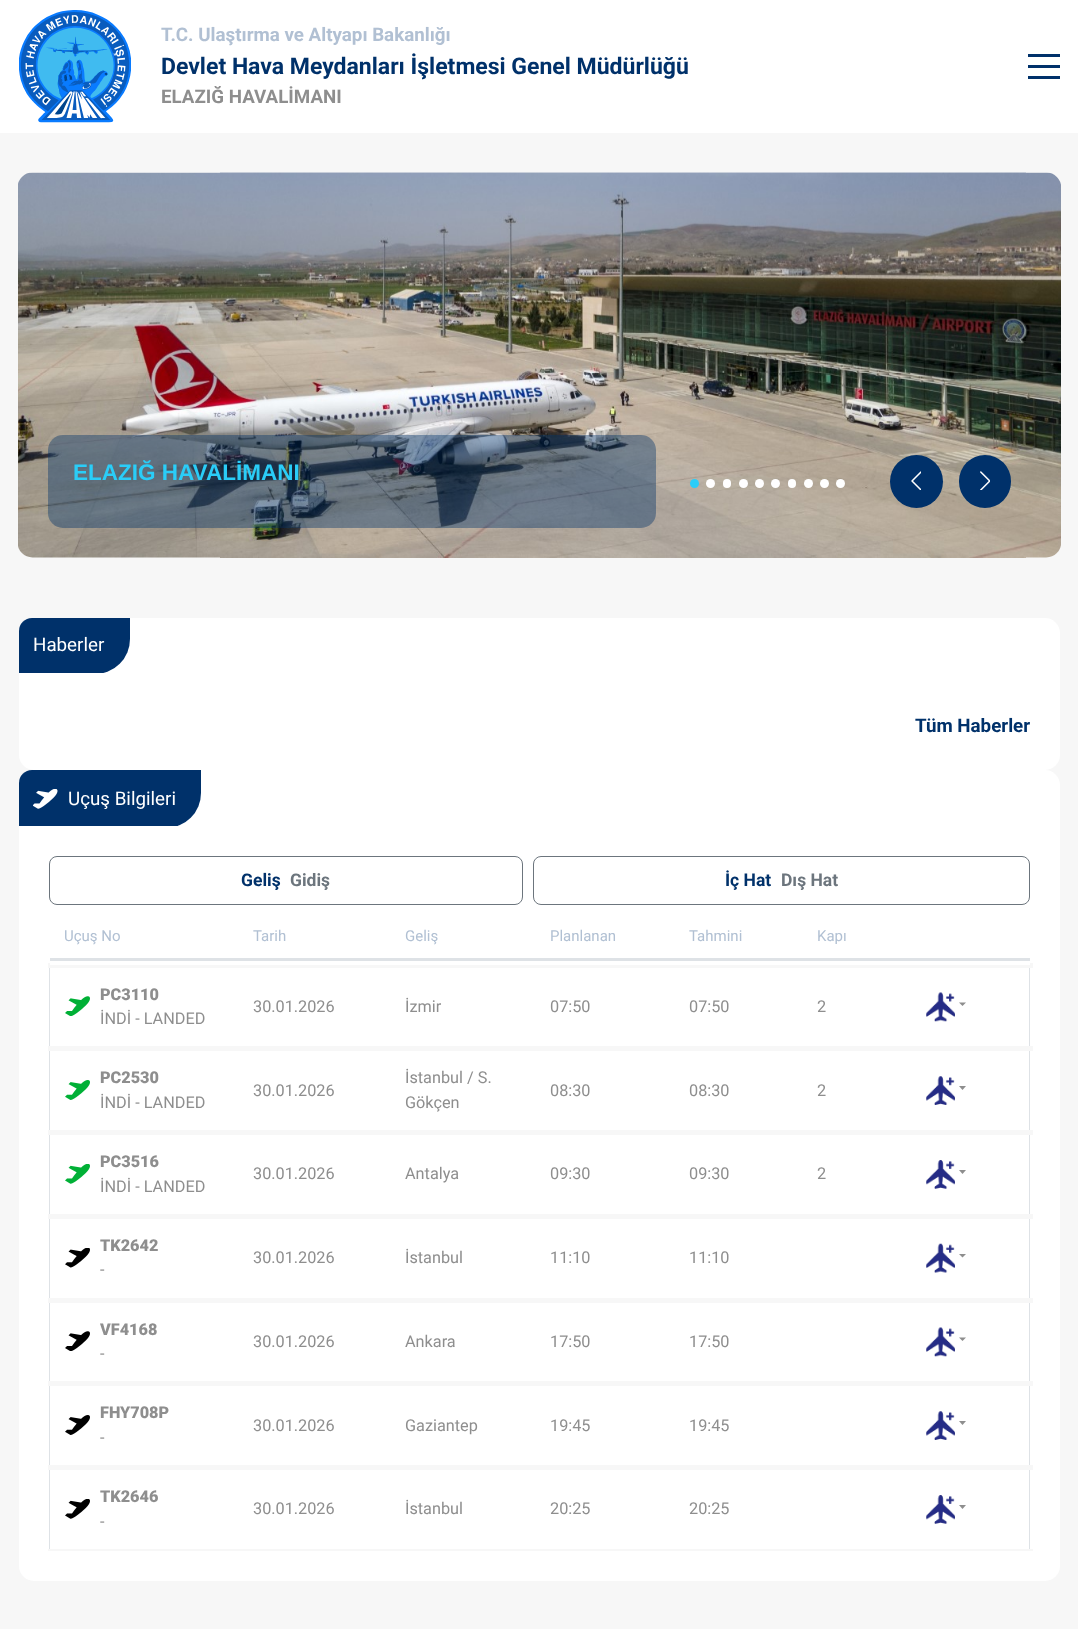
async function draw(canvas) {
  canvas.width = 1078
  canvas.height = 1629
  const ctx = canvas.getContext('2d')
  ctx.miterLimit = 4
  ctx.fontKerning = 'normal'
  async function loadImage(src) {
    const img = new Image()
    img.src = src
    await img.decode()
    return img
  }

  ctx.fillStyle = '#f7f7f7'
  ctx.fillRect(0, 0, 1078, 1629)
  ctx.fillStyle = '#fff'
  ctx.fillRect(0, 0, 1078, 133)
  ctx.drawImage(await loadImage('image0.png'), 19, 10, 112, 113)
  ctx.font = 'bold 18.75px Roboto'
  ctx.fillStyle = '#b1c0d3'
  ctx.fillText('T.C. Ulaştırma ve Altyapı Bakanlığı', 161, 41)
  ctx.font = 'bold 23px Roboto'
  ctx.fillStyle = '#00316a'
  ctx.fillText('Devlet Hava Meydanları İşletmesi Genel Müdürlüğü', 161, 74)
  ctx.font = 'bold 18.75px Roboto'
  ctx.fillStyle = '#8e8e8e'
  ctx.fillText('ELAZIĞ HAVALİMANI', 161, 103)
  ctx.fillStyle = '#00316a'
  ctx.fillRect(1028, 54, 32, 3)
  ctx.fillRect(1028, 65, 32, 3)
  ctx.fillRect(1028, 76, 32, 3)
  ctx.drawImage(await loadImage('image1.png'), 18, 172, 1043, 386)
  ctx.fillStyle = '#00316a66'
  ctx.beginPath()
  ctx.roundRect(48, 435, 608, 93, 15)
  ctx.fill()
  ctx.font = 'bold 22.5px Liberation Sans'
  ctx.fillStyle = '#2acdf8'
  ctx.fillText('ELAZIĞ HAVALİMANI', 73, 480)
  ctx.fillStyle = '#00316a'
  ctx.beginPath()
  ctx.arc(916.5, 481.5, 26.5, 0, 2 * Math.PI)
  ctx.fill()
  ctx.drawImage(await loadImage('image2.png'), 911, 471, 10, 19)
  ctx.beginPath()
  ctx.roundRect(959, 455, 52, 53, 26)
  ctx.fill()
  ctx.drawImage(await loadImage('image3.png'), 980, 471, 10, 19)
  ctx.fillStyle = '#2acdf8'
  ctx.beginPath()
  ctx.arc(694.5, 483.5, 4.5, 0, 2 * Math.PI)
  ctx.fill()
  ctx.fillStyle = '#fff'
  ctx.beginPath()
  ctx.arc(710.5, 483.5, 4.5, 0, 2 * Math.PI)
  ctx.fill()
  ctx.beginPath()
  ctx.roundRect(723, 479, 8, 9, 4)
  ctx.fill()
  ctx.beginPath()
  ctx.arc(743.5, 483.5, 4.5, 0, 2 * Math.PI)
  ctx.fill()
  ctx.beginPath()
  ctx.arc(759.5, 483.5, 4.5, 0, 2 * Math.PI)
  ctx.fill()
  ctx.beginPath()
  ctx.arc(775.5, 483.5, 4.5, 0, 2 * Math.PI)
  ctx.fill()
  ctx.beginPath()
  ctx.roundRect(788, 479, 8, 9, 4)
  ctx.fill()
  ctx.beginPath()
  ctx.arc(808.5, 483.5, 4.5, 0, 2 * Math.PI)
  ctx.fill()
  ctx.beginPath()
  ctx.arc(824.5, 483.5, 4.5, 0, 2 * Math.PI)
  ctx.fill()
  ctx.beginPath()
  ctx.arc(840.5, 483.5, 4.5, 0, 2 * Math.PI)
  ctx.fill()
  ctx.beginPath()
  ctx.roundRect(19, 618, 1041, 152, 15)
  ctx.fill()
  ctx.save()
  ctx.beginPath()
  ctx.rect(19, 618, 1041, 55)
  ctx.clip()
  ctx.fillStyle = '#00316a'
  ctx.beginPath()
  ctx.roundRect(19, 618, 111, 56, [13, 0, 35, 0])
  ctx.fill()
  ctx.restore()
  ctx.font = '18.75px Roboto'
  ctx.fillText('Haberler', 33, 651)
  ctx.font = 'bold 18.75px Roboto'
  ctx.fillStyle = '#00316a'
  ctx.fillText('Tüm Haberler', 915, 732)
  ctx.fillStyle = '#fff'
  ctx.beginPath()
  ctx.roundRect(19, 770, 1041, 811, 15)
  ctx.fill()
  ctx.save()
  ctx.beginPath()
  ctx.rect(19, 770, 1041, 56)
  ctx.clip()
  ctx.fillStyle = '#00316a'
  ctx.beginPath()
  ctx.roundRect(19, 770, 182, 58, [13, 0, 35, 0])
  ctx.fill()
  ctx.restore()
  ctx.drawImage(await loadImage('image4.png'), 33, 789, 25, 20)
  ctx.font = '18.75px Roboto'
  ctx.fillText('Uçuş Bilgileri', 68, 805)
  ctx.beginPath()
  ctx.roundRect(49.5, 856.5, 473, 48, 7.5)
  ctx.strokeStyle = '#6c757d'
  ctx.stroke()
  ctx.font = 'bold 17.5px Roboto'
  ctx.fillStyle = '#00316a'
  ctx.fillText('Geliş', 241, 886)
  ctx.fillStyle = '#6c757d'
  ctx.fillText('Gidiş', 290, 886)
  ctx.beginPath()
  ctx.roundRect(533.5, 856.5, 496, 48, 7.5)
  ctx.stroke()
  ctx.fillStyle = '#00316a'
  ctx.fillText('İç Hat', 725, 886)
  ctx.fillStyle = '#6c757d'
  ctx.fillText('Dış Hat', 781, 886)
  ctx.fillStyle = '#dee2e6'
  ctx.fillRect(1029, 964, 1, 587)
  ctx.fillStyle = '#f7f7f7'
  ctx.fillRect(909, 963, 124, 5)
  ctx.fillRect(236, 965, 678, 3)
  ctx.fillStyle = '#dee2e6'
  ctx.fillRect(49, 964, 1, 587)
  ctx.fillStyle = '#f7f7f7'
  ctx.fillRect(48, 963, 193, 5)
  ctx.fillStyle = '#fff'
  ctx.fillRect(50, 963, 191, 2)
  ctx.fillStyle = '#dee2e6'
  ctx.fillRect(50, 958, 980, 3)
  ctx.font = '15px Roboto'
  ctx.fillStyle = '#b1c0d3'
  ctx.fillText('Uçuş No', 64, 941)
  ctx.fillText('Tarih', 253, 941)
  ctx.fillText('Geliş', 405, 941)
  ctx.fillText('Planlanan', 550, 941)
  ctx.fillText('Tahmini', 689, 941)
  ctx.fillStyle = '#fff'
  ctx.fillRect(909, 963, 121, 2)
  ctx.fillStyle = '#b1c0d3'
  ctx.fillText('Kapı', 817, 941)
  ctx.drawImage(await loadImage('image5.png'), 65, 996, 25, 20)
  ctx.font = '900 16.25px Roboto'
  ctx.fillStyle = '#8e8e8e'
  ctx.fillText('PC3110', 100, 1000)
  ctx.font = '16.25px Roboto'
  ctx.fillText('İNDİ - LANDED', 100, 1024)
  ctx.fillStyle = '#f7f7f7'
  ctx.fillRect(48, 1046, 985, 5)
  ctx.drawImage(await loadImage('image6.png'), 926, 992, 29, 30)
  ctx.fillStyle = '#8e8e8e'
  ctx.beginPath()
  ctx.moveTo(959, 1002.5)
  ctx.lineTo(966, 1002.5)
  ctx.lineTo(962.5, 1006)
  ctx.closePath()
  ctx.fill()
  ctx.fillText('30.01.2026', 253, 1012)
  ctx.fillText('İzmir', 405, 1012)
  ctx.fillText('07:50', 550, 1012)
  ctx.fillText('07:50', 689, 1012)
  ctx.fillText('2', 817, 1012)
  ctx.drawImage(await loadImage('image7.png'), 65, 1080, 25, 20)
  ctx.font = '900 16.25px Roboto'
  ctx.fillText('PC2530', 100, 1083)
  ctx.font = '16.25px Roboto'
  ctx.fillText('İNDİ - LANDED', 100, 1108)
  ctx.fillText('İstanbul / S.', 405, 1083)
  ctx.fillText('Gökçen', 405, 1108)
  ctx.fillStyle = '#f7f7f7'
  ctx.fillRect(48, 1130, 985, 5)
  ctx.drawImage(await loadImage('image8.png'), 926, 1076, 29, 29)
  ctx.fillStyle = '#8e8e8e'
  ctx.beginPath()
  ctx.moveTo(959, 1086)
  ctx.lineTo(966, 1086)
  ctx.lineTo(962.5, 1090)
  ctx.closePath()
  ctx.fill()
  ctx.fillText('30.01.2026', 253, 1096)
  ctx.fillText('08:30', 550, 1096)
  ctx.fillText('08:30', 689, 1096)
  ctx.fillText('2', 817, 1096)
  ctx.drawImage(await loadImage('image9.png'), 65, 1164, 25, 20)
  ctx.font = '900 16.25px Roboto'
  ctx.fillText('PC3516', 100, 1167)
  ctx.font = '16.25px Roboto'
  ctx.fillText('İNDİ - LANDED', 100, 1192)
  ctx.fillStyle = '#f7f7f7'
  ctx.fillRect(48, 1214, 985, 5)
  ctx.drawImage(await loadImage('image10.png'), 926, 1160, 29, 29)
  ctx.fillStyle = '#8e8e8e'
  ctx.beginPath()
  ctx.moveTo(959, 1170)
  ctx.lineTo(966, 1170)
  ctx.lineTo(962.5, 1174)
  ctx.closePath()
  ctx.fill()
  ctx.fillText('30.01.2026', 253, 1179)
  ctx.fillText('Antalya', 405, 1179)
  ctx.fillText('09:30', 550, 1179)
  ctx.fillText('09:30', 689, 1179)
  ctx.fillText('2', 817, 1179)
  ctx.drawImage(await loadImage('image11.png'), 65, 1248, 25, 20)
  ctx.font = '900 16.25px Roboto'
  ctx.fillText('TK2642', 100, 1251)
  ctx.font = '16.25px Roboto'
  ctx.fillText('-', 100, 1275)
  ctx.fillStyle = '#f7f7f7'
  ctx.fillRect(48, 1298, 985, 5)
  ctx.drawImage(await loadImage('image12.png'), 926, 1243, 29, 30)
  ctx.fillStyle = '#8e8e8e'
  ctx.beginPath()
  ctx.moveTo(959, 1254)
  ctx.lineTo(966, 1254)
  ctx.lineTo(962.5, 1257.5)
  ctx.closePath()
  ctx.fill()
  ctx.fillText('30.01.2026', 253, 1263)
  ctx.fillText('İstanbul', 405, 1263)
  ctx.fillText('11:10', 550, 1263)
  ctx.fillText('11:10', 689, 1263)
  ctx.drawImage(await loadImage('image13.png'), 65, 1331, 25, 20)
  ctx.font = '900 16.25px Roboto'
  ctx.fillText('VF4168', 100, 1335)
  ctx.font = '16.25px Roboto'
  ctx.fillText('-', 100, 1359)
  ctx.fillStyle = '#f7f7f7'
  ctx.fillRect(48, 1381, 985, 5)
  ctx.drawImage(await loadImage('image6.png'), 926, 1327, 29, 30)
  ctx.fillStyle = '#8e8e8e'
  ctx.beginPath()
  ctx.moveTo(959, 1337.5)
  ctx.lineTo(966, 1337.5)
  ctx.lineTo(962.5, 1341)
  ctx.closePath()
  ctx.fill()
  ctx.fillText('30.01.2026', 253, 1347)
  ctx.fillText('Ankara', 405, 1347)
  ctx.fillText('17:50', 550, 1347)
  ctx.fillText('17:50', 689, 1347)
  ctx.drawImage(await loadImage('image14.png'), 65, 1415, 25, 20)
  ctx.font = '900 16.25px Roboto'
  ctx.fillText('FHY708P', 100, 1418)
  ctx.font = '16.25px Roboto'
  ctx.fillText('-', 100, 1443)
  ctx.fillStyle = '#f7f7f7'
  ctx.fillRect(48, 1465, 985, 5)
  ctx.drawImage(await loadImage('image8.png'), 926, 1411, 29, 29)
  ctx.fillStyle = '#8e8e8e'
  ctx.beginPath()
  ctx.moveTo(959, 1421)
  ctx.lineTo(966, 1421)
  ctx.lineTo(962.5, 1425)
  ctx.closePath()
  ctx.fill()
  ctx.fillText('30.01.2026', 253, 1431)
  ctx.fillText('Gaziantep', 405, 1431)
  ctx.fillText('19:45', 550, 1431)
  ctx.fillText('19:45', 689, 1431)
  ctx.drawImage(await loadImage('image15.png'), 65, 1499, 25, 20)
  ctx.font = '900 16.25px Roboto'
  ctx.fillText('TK2646', 100, 1502)
  ctx.font = '16.25px Roboto'
  ctx.fillText('-', 100, 1527)
  ctx.fillStyle = '#f7f7f7'
  ctx.fillRect(48, 1549, 985, 2)
  ctx.drawImage(await loadImage('image10.png'), 926, 1495, 29, 29)
  ctx.fillStyle = '#8e8e8e'
  ctx.beginPath()
  ctx.moveTo(959, 1505)
  ctx.lineTo(966, 1505)
  ctx.lineTo(962.5, 1509)
  ctx.closePath()
  ctx.fill()
  ctx.fillText('30.01.2026', 253, 1514)
  ctx.fillText('İstanbul', 405, 1514)
  ctx.fillText('20:25', 550, 1514)
  ctx.fillText('20:25', 689, 1514)
}

draw(document.querySelector('canvas'))
